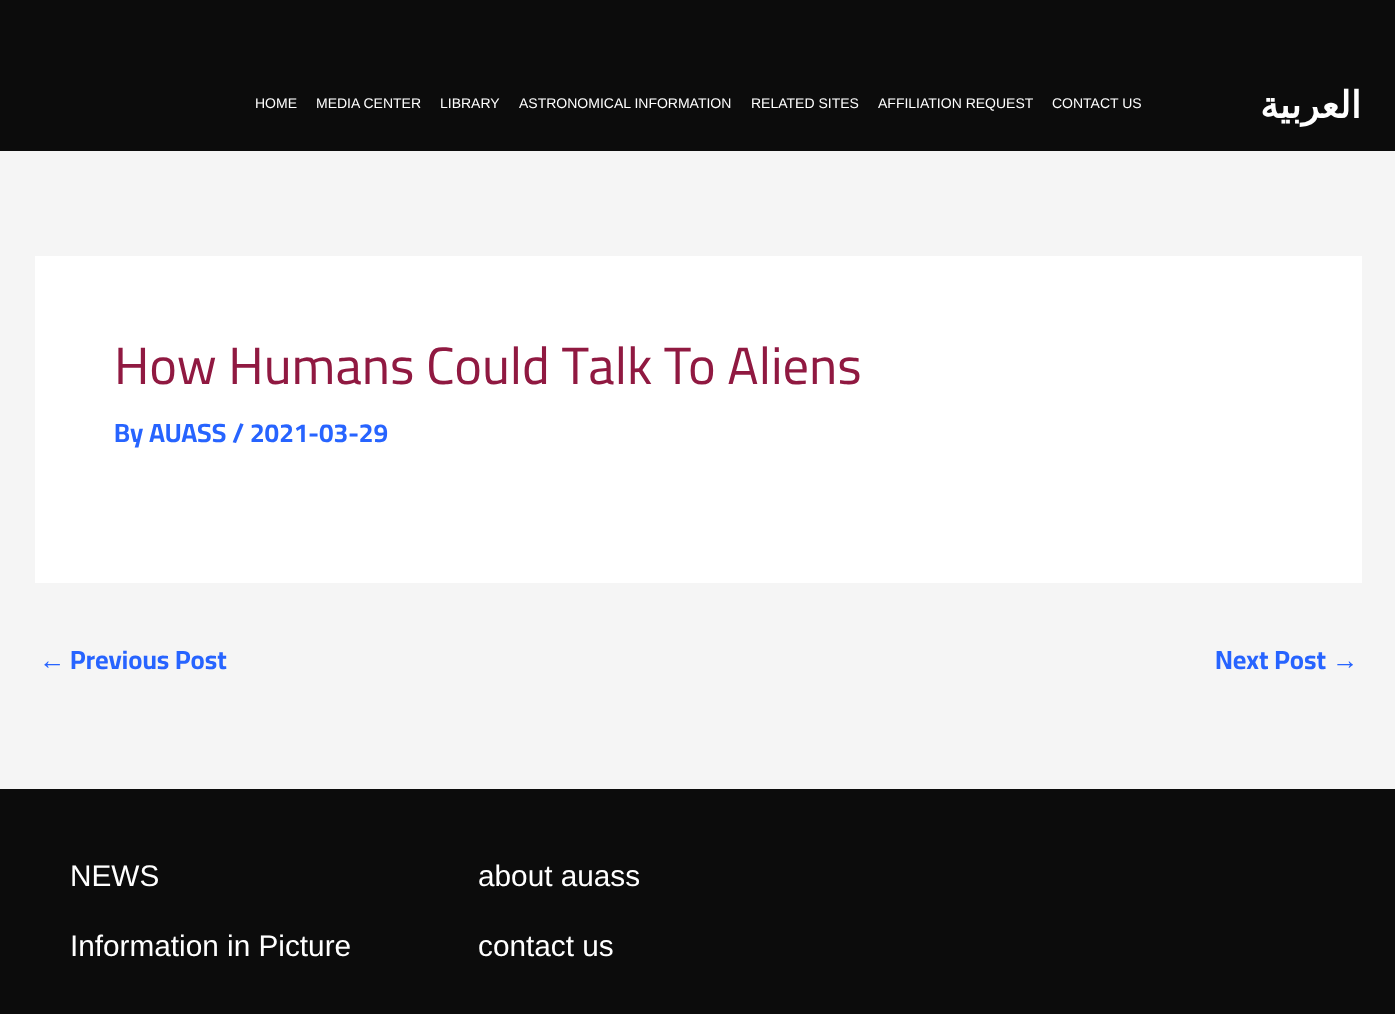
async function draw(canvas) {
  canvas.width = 1395
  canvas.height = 1014
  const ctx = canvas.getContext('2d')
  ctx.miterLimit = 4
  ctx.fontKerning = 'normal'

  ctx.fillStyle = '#f5f5f5'
  ctx.fillRect(0, 0, 1395, 1014)
  ctx.fillStyle = '#0c0c0c'
  ctx.fillRect(0, 0, 1395, 151)
  ctx.font = '14px Liberation Sans'
  ctx.fillStyle = '#fff'
  ctx.fillText('HOME', 255, 108)
  ctx.fillText('MEDIA CENTER', 316, 108)
  ctx.fillText('LIBRARY', 440, 108)
  ctx.fillText('ASTRONOMICAL INFORMATION', 519, 108)
  ctx.fillText('RELATED SITES', 751, 108)
  ctx.fillText('AFFILIATION REQUEST', 878, 108)
  ctx.fillText('CONTACT US', 1052, 108)
  ctx.direction = 'rtl'
  ctx.font = 'bold 37px DejaVu Sans'
  ctx.fillText('العربية', 1361, 118)
  ctx.fillRect(35, 256, 1327, 327)
  ctx.direction = 'ltr'
  ctx.font = '52.5px Cairo'
  ctx.fillStyle = '#901941'
  ctx.fillText('How Humans Could Talk To Aliens', 114, 384)
  ctx.font = 'bold 26.25px Cairo'
  ctx.fillStyle = '#2764ff'
  ctx.fillText('By AUASS / 2021-03-29', 114, 442)
  ctx.font = 'bold 26.25px Liberation Sans'
  ctx.fillText('←', 39, 669)
  ctx.font = 'bold 26.25px Cairo'
  ctx.fillText('Previous Post', 70, 669)
  ctx.fillText('Next Post', 1215, 669)
  ctx.font = 'bold 26.25px Liberation Sans'
  ctx.fillText('→', 1332, 669)
  ctx.fillStyle = '#0c0c0c'
  ctx.fillRect(0, 789, 1395, 225)
  ctx.font = '29.75px Liberation Sans'
  ctx.fillStyle = '#fff'
  ctx.fillText('NEWS', 70, 886)
  ctx.fillText('Information in Picture', 70, 956)
  ctx.fillText('about auass', 478, 886)
  ctx.fillText('contact us', 478, 956)
}

draw(document.querySelector('canvas'))
